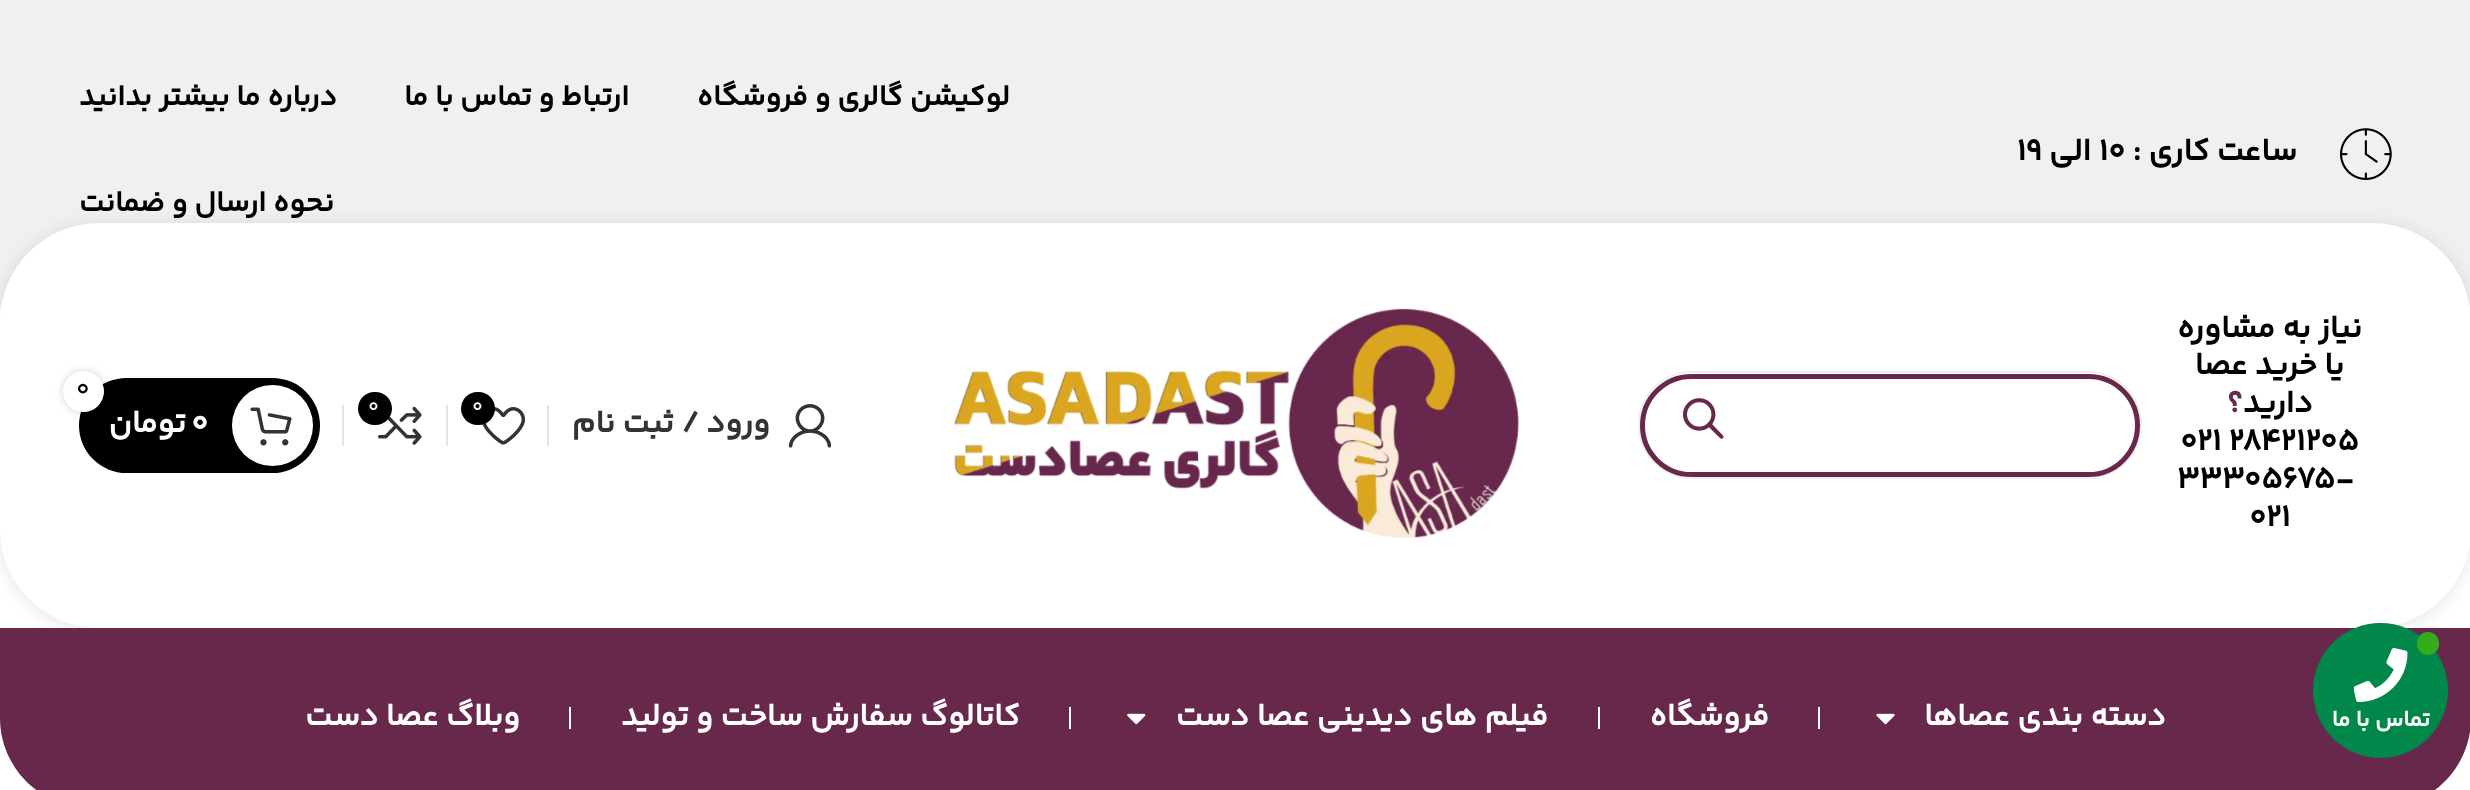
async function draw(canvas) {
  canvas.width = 2470
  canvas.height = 790
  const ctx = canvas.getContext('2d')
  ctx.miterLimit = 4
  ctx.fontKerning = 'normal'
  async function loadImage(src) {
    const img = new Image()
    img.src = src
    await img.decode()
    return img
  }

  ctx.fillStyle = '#fff'
  ctx.fillRect(0, 0, 2470, 790)
  ctx.fillStyle = '#f1f0f0'
  ctx.fillRect(0, 0, 2470, 306)
  ctx.fillStyle = '#0000001a'
  ctx.filter = 'blur(9px)'
  ctx.beginPath()
  ctx.roundRect(0, 225, 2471, 405, 99)
  ctx.fill()
  ctx.filter = 'none'
  ctx.fillStyle = '#fff'
  ctx.beginPath()
  ctx.roundRect(0, 223, 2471, 405, 99)
  ctx.fill()
  ctx.fillStyle = '#67284c'
  ctx.beginPath()
  ctx.moveTo(0, 628)
  ctx.lineTo(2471, 628)
  ctx.lineTo(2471, 718)
  ctx.bezierCurveTo(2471, 767.5, 2430.5, 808, 2381, 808)
  ctx.lineTo(90, 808)
  ctx.bezierCurveTo(40.5, 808, 0, 767.5, 0, 718)
  ctx.closePath()
  ctx.fill()
  ctx.fillStyle = '#008749'
  ctx.beginPath()
  ctx.arc(2380.5, 690.5, 67.5, 0, 2 * Math.PI)
  ctx.fill()
  ctx.fillStyle = '#35ac19'
  ctx.beginPath()
  ctx.roundRect(2417, 632, 22, 23, 11)
  ctx.fill()
  ctx.drawImage(await loadImage('image0.png'), 2354, 648, 54, 54)
  ctx.direction = 'rtl'
  ctx.font = 'bold 22.5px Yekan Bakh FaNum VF'
  ctx.fillStyle = '#fff'
  ctx.fillText('تماس با ما', 2430, 726)
  ctx.drawImage(await loadImage('image1.png'), 2340, 128, 52, 52)
  ctx.font = 'bold 31.5px Yekan Bakh FaNum VF'
  ctx.fillStyle = '#000'
  ctx.fillText('ساعت کاری :', 2297, 160)
  ctx.direction = 'ltr'
  ctx.fillText('10', 2099, 160)
  ctx.direction = 'rtl'
  ctx.fillText('الی', 2091, 160)
  ctx.direction = 'ltr'
  ctx.fillText('19', 2017, 160)
  ctx.direction = 'rtl'
  ctx.font = 'bold 29.25px Yekan Bakh FaNum VF'
  ctx.fillText('لوکیشن گالری و فروشگاه', 1010, 105)
  ctx.fillText('ارتباط و تماس با ما', 629, 105)
  ctx.fillText('درباره ما بیشتر بدانید', 337, 105)
  ctx.fillText('نحوه ارسال و ضمانت', 334, 211)
  ctx.font = 'bold 31.5px Yekan Bakh FaNum VF'
  ctx.fillText('نیاز به مشاوره', 2362, 337)
  ctx.fillText('یا خرید عصا', 2344, 374)
  ctx.fillText('دارید', 2313, 412)
  ctx.fillStyle = '#67284c'
  ctx.fillText('؟', 2243, 412)
  ctx.direction = 'ltr'
  ctx.fillStyle = '#000'
  ctx.fillText('021 28421205', 2180, 450)
  ctx.fillText('33305675-', 2177, 488)
  ctx.fillText('021', 2249, 526)
  ctx.beginPath()
  ctx.roundRect(1639, 372, 502, 106, 53)
  ctx.strokeStyle = '#eee'
  ctx.lineWidth = 2
  ctx.stroke()
  ctx.fillStyle = '#fff'
  ctx.beginPath()
  ctx.roundRect(1642.5, 376.5, 495, 98, 49)
  ctx.fill()
  ctx.strokeStyle = '#67284c'
  ctx.lineWidth = 5
  ctx.stroke()
  ctx.drawImage(await loadImage('image2.png'), 1683, 398, 41, 41)
  ctx.drawImage(await loadImage('image3.png'), 953, 308, 566, 231)
  ctx.drawImage(await loadImage('image4.png'), 788, 404, 44, 44)
  ctx.direction = 'rtl'
  ctx.fillStyle = '#333'
  ctx.fillText('ورود / ثبت نام', 770, 432)
  ctx.fillStyle = '#e4e4e4'
  ctx.fillRect(547, 405, 2, 41)
  ctx.drawImage(await loadImage('image5.png'), 482, 407, 44, 38)
  ctx.fillStyle = '#000'
  ctx.beginPath()
  ctx.roundRect(461, 392, 34, 33, 16.5)
  ctx.fill()
  ctx.direction = 'ltr'
  ctx.font = '20px Yekan Bakh FaNum VF'
  ctx.fillStyle = '#fff'
  ctx.fillText('0', 472, 412)
  ctx.fillStyle = '#e4e4e4'
  ctx.fillRect(446, 405, 2, 41)
  ctx.drawImage(await loadImage('image6.png'), 378, 406, 44, 39)
  ctx.fillStyle = '#000'
  ctx.beginPath()
  ctx.roundRect(358, 392, 34, 33, 16.5)
  ctx.fill()
  ctx.fillStyle = '#fff'
  ctx.fillText('0', 368, 412)
  ctx.fillStyle = '#e4e4e4'
  ctx.fillRect(342, 405, 2, 41)
  ctx.fillStyle = '#000'
  ctx.beginPath()
  ctx.roundRect(79, 378, 241, 95, 47.5)
  ctx.fill()
  ctx.fillStyle = '#fff'
  ctx.beginPath()
  ctx.arc(272.5, 425.5, 40.5, 0, 2 * Math.PI)
  ctx.fill()
  ctx.fillStyle = '#0000002b'
  ctx.filter = 'blur(4.5px)'
  ctx.beginPath()
  ctx.roundRect(63, 371, 41, 41, 20.5)
  ctx.fill()
  ctx.filter = 'none'
  ctx.fillStyle = '#fff'
  ctx.beginPath()
  ctx.arc(83.5, 391.5, 20.5, 0, 2 * Math.PI)
  ctx.fill()
  ctx.font = '25px Yekan Bakh FaNum VF'
  ctx.fillStyle = '#000'
  ctx.fillText('0', 76, 396)
  ctx.drawImage(await loadImage('image7.png'), 250, 407, 42, 39)
  ctx.font = 'bold 31.5px Yekan Bakh FaNum VF'
  ctx.fillStyle = '#fff'
  ctx.fillText('0', 191, 432)
  ctx.direction = 'rtl'
  ctx.fillText('تومان', 186, 432)
  ctx.fillText('دسته‌ بندی عصاها', 2166, 725)
  ctx.drawImage(await loadImage('image8.png'), 1876, 713, 19, 12)
  ctx.fillRect(1818, 707, 2, 22)
  ctx.fillText('فروشگاه', 1769, 725)
  ctx.fillRect(1598, 707, 2, 22)
  ctx.fillText('فیلم های دیدینی عصا دست', 1548, 725)
  ctx.drawImage(await loadImage('image9.png'), 1127, 713, 19, 12)
  ctx.fillRect(1069, 707, 2, 22)
  ctx.fillText('کاتالوگ سفارش ساخت و تولید', 1020, 725)
  ctx.fillRect(569, 707, 2, 22)
  ctx.fillText('وبلاگ عصا دست', 520, 725)
}

draw(document.querySelector('canvas'))
